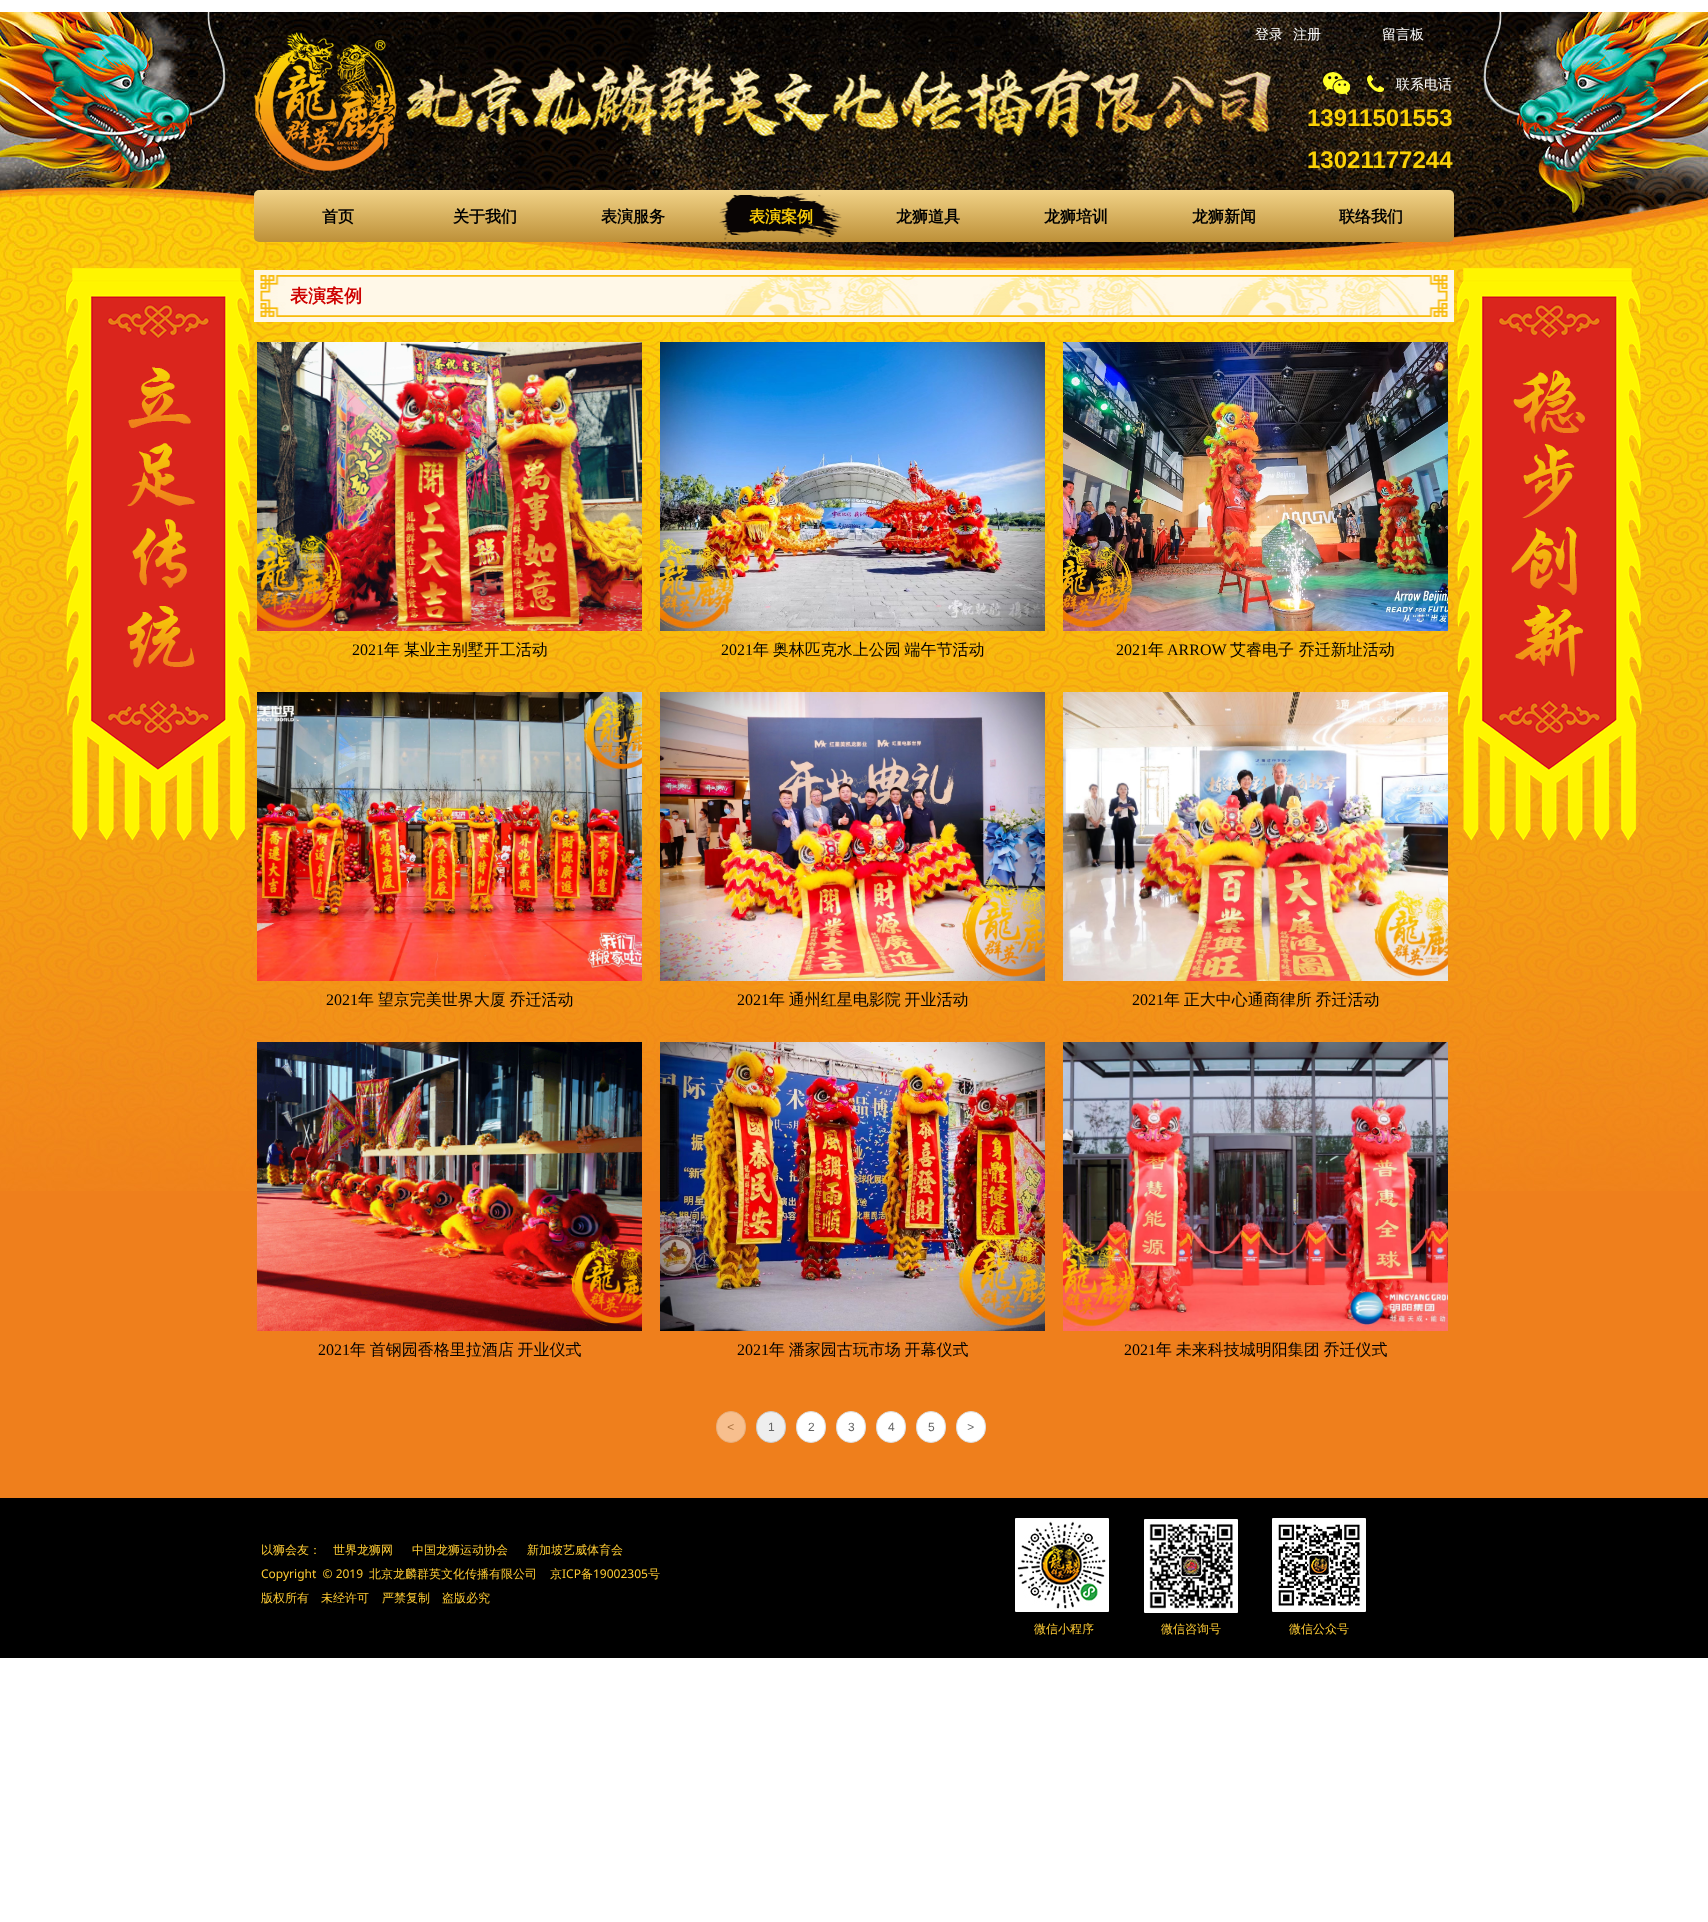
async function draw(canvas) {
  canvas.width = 1708
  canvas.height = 1922
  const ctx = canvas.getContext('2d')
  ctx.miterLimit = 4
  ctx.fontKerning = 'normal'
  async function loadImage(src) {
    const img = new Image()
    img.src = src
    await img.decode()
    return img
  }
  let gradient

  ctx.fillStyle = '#fff'
  ctx.fillRect(0, 0, 1708, 1922)
  ctx.fillStyle = '#ef7f1c'
  ctx.fillRect(0, 1191, 1708, 307)
  ctx.drawImage(await loadImage('image0.png'), 0, 12, 1708, 256)
  ctx.drawImage(await loadImage('image1.png'), 254, 32, 1017, 143)
  ctx.font = '500 14px WenQuanYi Zen Hei'
  ctx.fillStyle = '#fff'
  ctx.fillText('登录', 1255, 39)
  ctx.fillText('注册', 1293, 39)
  ctx.drawImage(await loadImage('image2.png'), 1323, 72, 27, 23)
  ctx.drawImage(await loadImage('image3.png'), 1367, 75, 17, 17)
  ctx.fillText('留言板', 1382, 39)
  ctx.fillText('联系电话', 1396, 89)
  ctx.font = 'bold 24px Liberation Sans'
  ctx.fillStyle = '#fbd207'
  ctx.fillText('13911501553', 1307, 126)
  ctx.fillText('13021177244', 1307, 168)
  gradient = ctx.createLinearGradient(254, 190, 254, 242)
  gradient.addColorStop(0, '#f1d287')
  gradient.addColorStop(1, '#bd9038')
  ctx.fillStyle = gradient
  ctx.beginPath()
  ctx.roundRect(254, 190, 1200, 52, 5)
  ctx.fill()
  ctx.font = 'bold 16px WenQuanYi Zen Hei'
  ctx.fillStyle = '#000'
  ctx.fillText('首页', 322, 222)
  ctx.fillText('关于我们', 453, 222)
  ctx.fillText('表演服务', 601, 222)
  ctx.drawImage(await loadImage('image4.png'), 719, 193, 123, 47)
  ctx.fillStyle = '#facc08'
  ctx.fillText('表演案例', 749, 222)
  ctx.fillStyle = '#000'
  ctx.fillText('龙狮道具', 896, 222)
  ctx.fillText('龙狮培训', 1044, 222)
  ctx.fillText('龙狮新闻', 1192, 222)
  ctx.fillText('联络我们', 1339, 222)
  ctx.drawImage(await loadImage('image5.png'), 0, 268, 1708, 923)
  ctx.drawImage(await loadImage('image6.png'), 66, 268, 185, 573)
  ctx.drawImage(await loadImage('image7.png'), 254, 270, 1200, 52)
  ctx.font = 'bold 18px WenQuanYi Zen Hei'
  ctx.fillStyle = '#ce0100'
  ctx.fillText('表演案例', 290, 302)
  ctx.drawImage(await loadImage('image8.png'), 1457, 268, 185, 573)
  ctx.drawImage(await loadImage('image9.png'), 257, 342, 385, 289)
  ctx.font = '16px Liberation Serif'
  ctx.fillStyle = '#000'
  ctx.fillText('2021', 352, 655)
  ctx.wordSpacing = '-1px'
  ctx.font = '500 16px WenQuanYi Zen Hei'
  ctx.fillText('年 某业主别墅开工活动', 384, 655)
  ctx.drawImage(await loadImage('image10.png'), 660, 342, 385, 289)
  ctx.wordSpacing = '0px'
  ctx.font = '16px Liberation Serif'
  ctx.fillText('2021', 721, 655)
  ctx.wordSpacing = '-1px'
  ctx.font = '500 16px WenQuanYi Zen Hei'
  ctx.fillText('年 奥林匹克水上公园 端午节活动', 753, 655)
  ctx.drawImage(await loadImage('image11.png'), 1063, 342, 385, 289)
  ctx.wordSpacing = '0px'
  ctx.font = '16px Liberation Serif'
  ctx.fillText('2021', 1116, 655)
  ctx.font = '500 16px WenQuanYi Zen Hei'
  ctx.fillText('年', 1148, 655)
  ctx.font = '16px Liberation Serif'
  ctx.fillText('ARROW', 1167, 655)
  ctx.font = '500 16px WenQuanYi Zen Hei'
  ctx.fillText('艾睿电子 乔迁新址活动', 1230, 655)
  ctx.drawImage(await loadImage('image12.png'), 257, 692, 385, 289)
  ctx.font = '16px Liberation Serif'
  ctx.fillText('2021', 326, 1005)
  ctx.wordSpacing = '-1px'
  ctx.font = '500 16px WenQuanYi Zen Hei'
  ctx.fillText('年 望京完美世界大厦 乔迁活动', 358, 1005)
  ctx.drawImage(await loadImage('image13.png'), 660, 692, 385, 289)
  ctx.wordSpacing = '0px'
  ctx.font = '16px Liberation Serif'
  ctx.fillText('2021', 737, 1005)
  ctx.wordSpacing = '-1px'
  ctx.font = '500 16px WenQuanYi Zen Hei'
  ctx.fillText('年 通州红星电影院 开业活动', 769, 1005)
  ctx.drawImage(await loadImage('image14.png'), 1063, 692, 385, 289)
  ctx.wordSpacing = '0px'
  ctx.font = '16px Liberation Serif'
  ctx.fillText('2021', 1132, 1005)
  ctx.wordSpacing = '-1px'
  ctx.font = '500 16px WenQuanYi Zen Hei'
  ctx.fillText('年 正大中心通商律所 乔迁活动', 1164, 1005)
  ctx.drawImage(await loadImage('image15.png'), 257, 1042, 385, 289)
  ctx.wordSpacing = '0px'
  ctx.font = '16px Liberation Serif'
  ctx.fillText('2021', 318, 1355)
  ctx.wordSpacing = '-1px'
  ctx.font = '500 16px WenQuanYi Zen Hei'
  ctx.fillText('年 首钢园香格里拉酒店 开业仪式', 350, 1355)
  ctx.drawImage(await loadImage('image16.png'), 660, 1042, 385, 289)
  ctx.wordSpacing = '0px'
  ctx.font = '16px Liberation Serif'
  ctx.fillText('2021', 737, 1355)
  ctx.wordSpacing = '-1px'
  ctx.font = '500 16px WenQuanYi Zen Hei'
  ctx.fillText('年 潘家园古玩市场 开幕仪式', 769, 1355)
  ctx.drawImage(await loadImage('image17.png'), 1063, 1042, 385, 289)
  ctx.wordSpacing = '0px'
  ctx.font = '16px Liberation Serif'
  ctx.fillText('2021', 1124, 1355)
  ctx.wordSpacing = '-1px'
  ctx.font = '500 16px WenQuanYi Zen Hei'
  ctx.fillText('年 未来科技城明阳集团 乔迁仪式', 1156, 1355)
  ctx.fillStyle = '#f7bf8e'
  ctx.beginPath()
  ctx.roundRect(716.5, 1411.5, 29, 31, 14.5)
  ctx.fill()
  ctx.strokeStyle = '#e6ae7d'
  ctx.stroke()
  ctx.wordSpacing = '0px'
  ctx.font = 'italic 12px Liberation Sans'
  ctx.fillStyle = '#ab7341'
  ctx.fillText('<', 727, 1431)
  ctx.fillStyle = '#eee'
  ctx.beginPath()
  ctx.roundRect(756.5, 1411.5, 29, 31, 14.5)
  ctx.fill()
  ctx.strokeStyle = '#ccc'
  ctx.stroke()
  ctx.font = '12px Liberation Sans'
  ctx.fillStyle = '#666'
  ctx.fillText('1', 768, 1431)
  ctx.fillStyle = '#fff'
  ctx.beginPath()
  ctx.roundRect(796.5, 1411.5, 29, 31, 14.5)
  ctx.fill()
  ctx.strokeStyle = '#ddd'
  ctx.stroke()
  ctx.fillStyle = '#666'
  ctx.fillText('2', 808, 1431)
  ctx.fillStyle = '#fff'
  ctx.beginPath()
  ctx.roundRect(836.5, 1411.5, 29, 31, 14.5)
  ctx.fill()
  ctx.stroke()
  ctx.fillStyle = '#666'
  ctx.fillText('3', 848, 1431)
  ctx.fillStyle = '#fff'
  ctx.beginPath()
  ctx.roundRect(876.5, 1411.5, 29, 31, 14.5)
  ctx.fill()
  ctx.stroke()
  ctx.fillStyle = '#666'
  ctx.fillText('4', 888, 1431)
  ctx.fillStyle = '#fff'
  ctx.beginPath()
  ctx.roundRect(916.5, 1411.5, 29, 31, 14.5)
  ctx.fill()
  ctx.stroke()
  ctx.fillStyle = '#666'
  ctx.fillText('5', 928, 1431)
  ctx.fillStyle = '#fff'
  ctx.beginPath()
  ctx.roundRect(956.5, 1411.5, 29, 31, 14.5)
  ctx.fill()
  ctx.stroke()
  ctx.font = 'italic 12px Liberation Sans'
  ctx.fillStyle = '#666'
  ctx.fillText('>', 967, 1431)
  ctx.fillStyle = '#000'
  ctx.fillRect(0, 1498, 1708, 160)
  ctx.font = '500 12px WenQuanYi Zen Hei'
  ctx.fillStyle = '#fc3'
  ctx.fillText('以狮会友：', 261, 1554)
  ctx.fillText('世界龙狮网', 333, 1554)
  ctx.fillText('中国龙狮运动协会', 412, 1554)
  ctx.fillText('新加坡艺威体育会', 527, 1554)
  ctx.font = '12px Noto Sans'
  ctx.fillText('Copyright  © 2019', 261, 1578)
  ctx.font = '500 12px WenQuanYi Zen Hei'
  ctx.fillText('北京龙麟群英文化传播有限公司', 369, 1578)
  ctx.fillText('京', 550, 1578)
  ctx.font = '12px Noto Sans'
  ctx.fillText('ICP', 562, 1578)
  ctx.font = '500 12px WenQuanYi Zen Hei'
  ctx.fillText('备', 581, 1578)
  ctx.font = '12px Noto Sans'
  ctx.fillText('19002305', 593, 1578)
  ctx.font = '500 12px WenQuanYi Zen Hei'
  ctx.fillText('号', 648, 1578)
  ctx.fillText('版权所有', 261, 1602)
  ctx.fillText('未经许可', 321, 1602)
  ctx.fillText('严禁复制', 382, 1602)
  ctx.fillText('盗版必究', 442, 1602)
  ctx.drawImage(await loadImage('image18.png'), 1015, 1518, 94, 94)
  ctx.drawImage(await loadImage('image19.png'), 1144, 1519, 94, 94)
  ctx.drawImage(await loadImage('image20.png'), 1272, 1518, 94, 94)
  ctx.fillText('微信小程序', 1034, 1633)
  ctx.fillText('微信咨询号', 1161, 1633)
  ctx.fillText('微信公众号', 1289, 1633)
}

draw(document.querySelector('canvas'))
